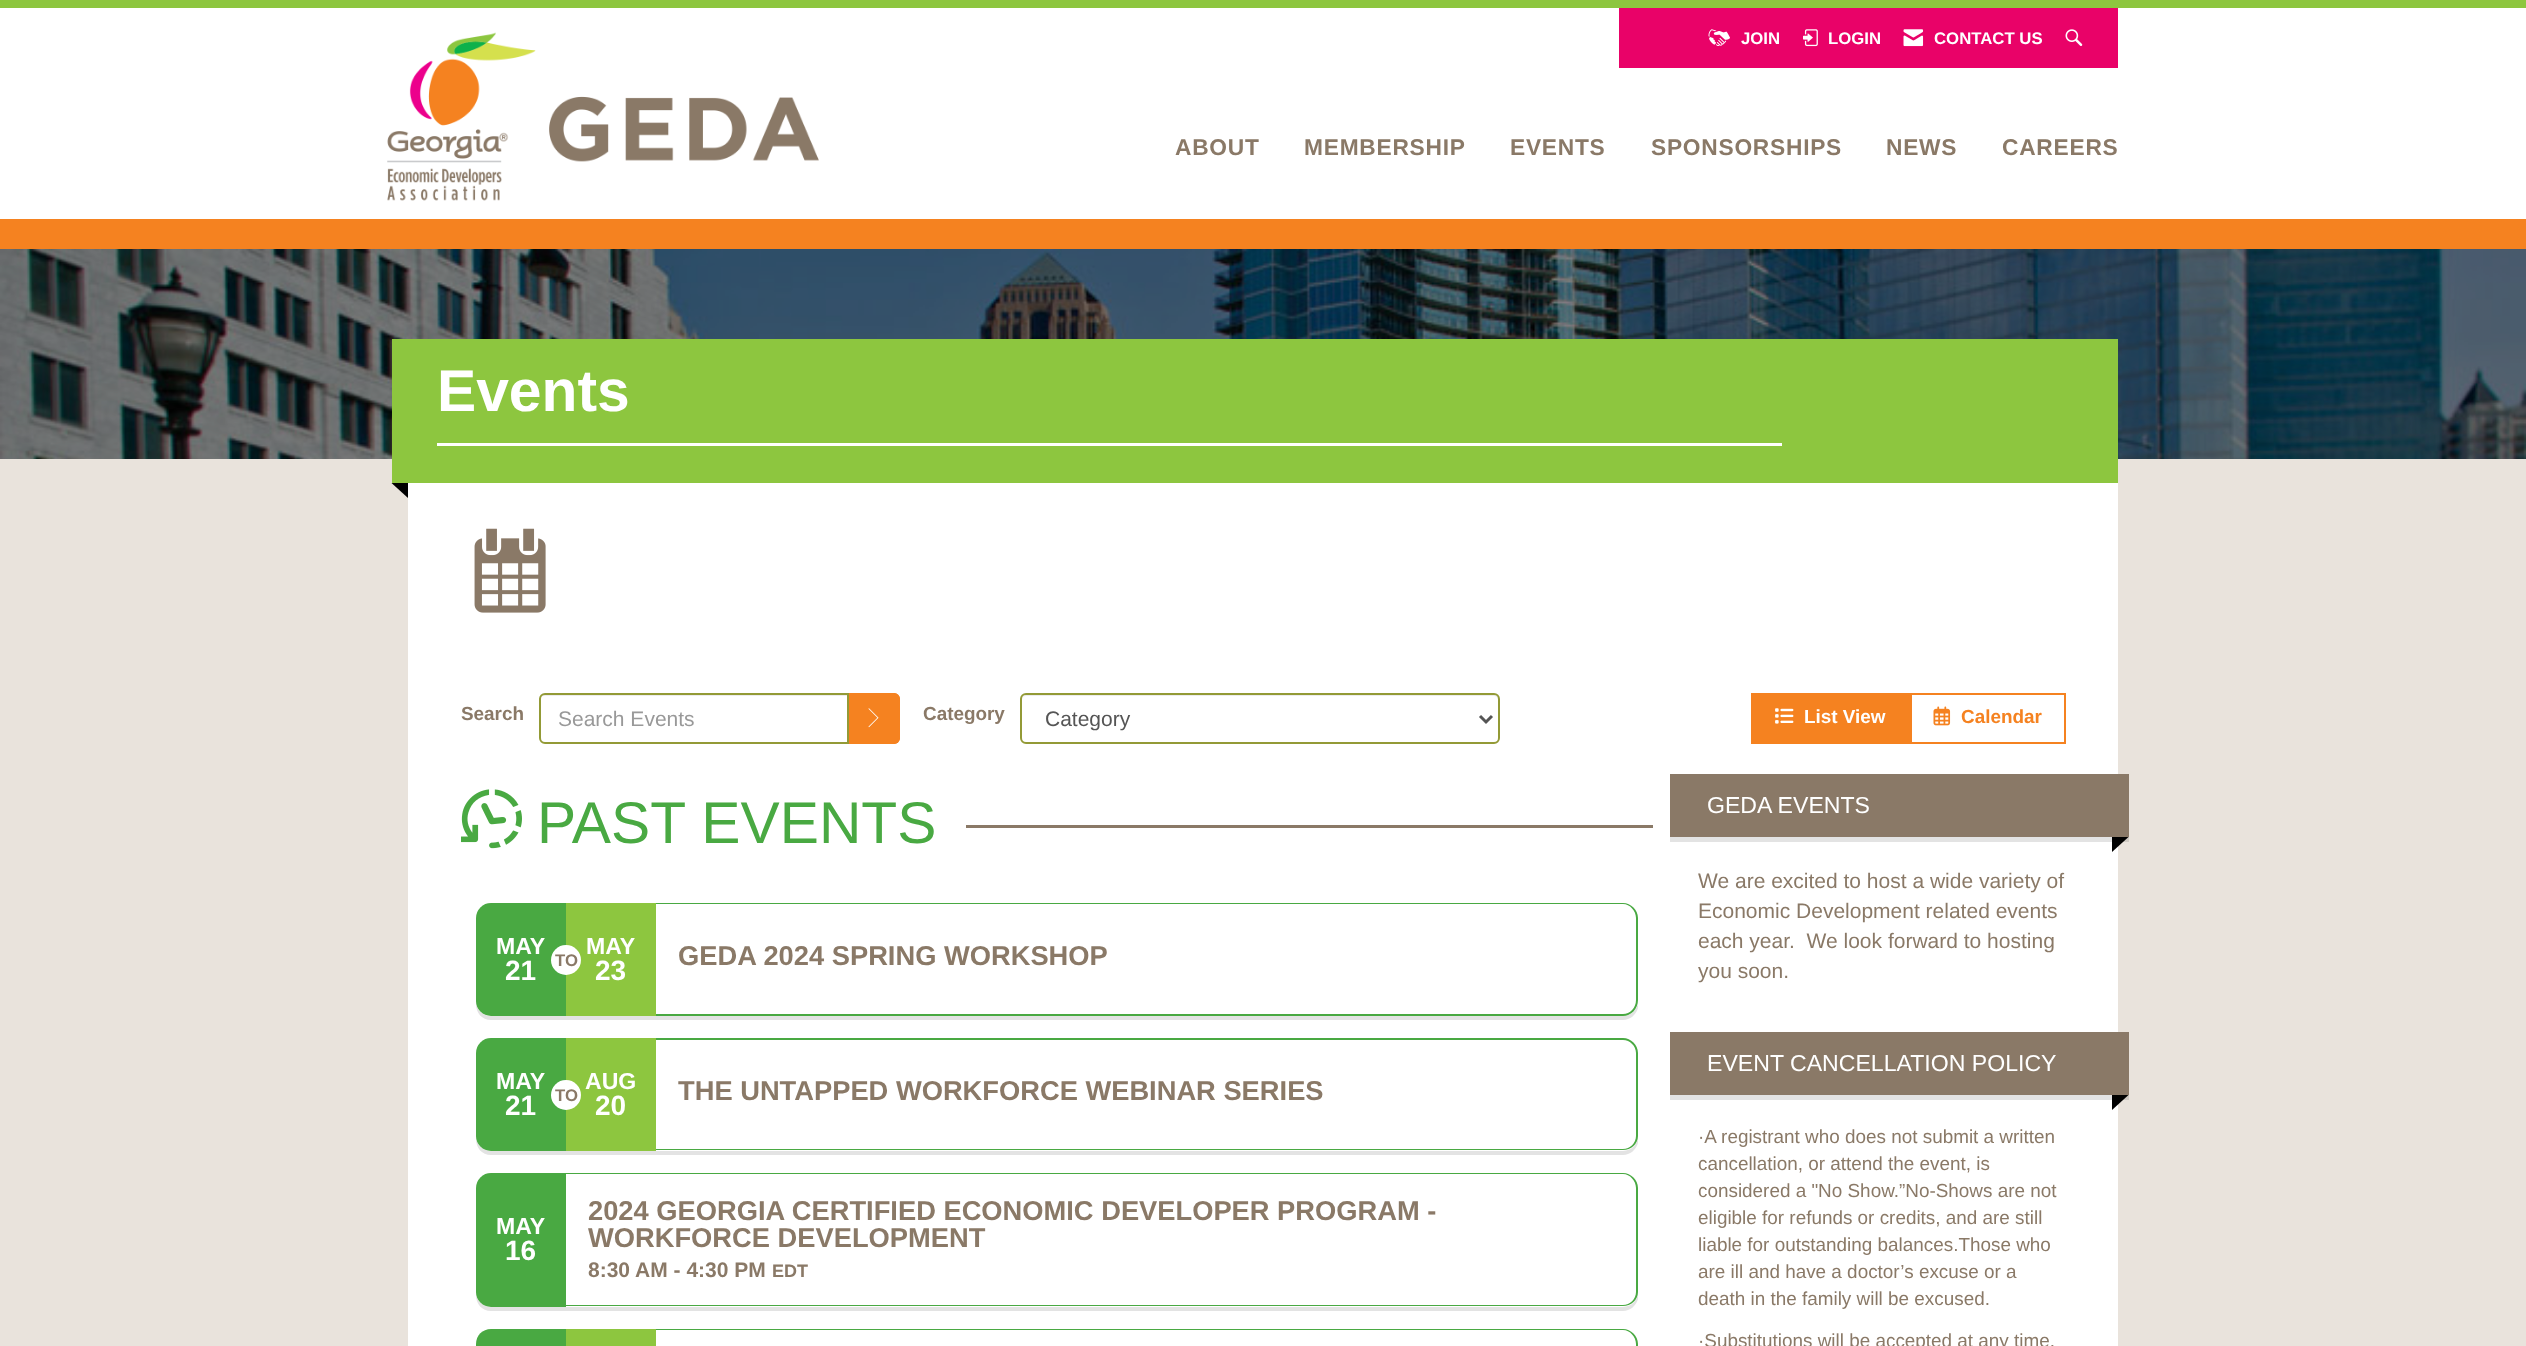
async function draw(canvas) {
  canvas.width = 2526
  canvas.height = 1346
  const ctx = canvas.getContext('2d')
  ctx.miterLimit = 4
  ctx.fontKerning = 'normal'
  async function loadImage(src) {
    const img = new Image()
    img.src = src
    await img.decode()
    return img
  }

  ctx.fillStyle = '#fff'
  ctx.fillRect(0, 0, 2526, 1346)
  ctx.fillStyle = '#8dc63f'
  ctx.fillRect(0, 0, 2526, 8)
  ctx.fillStyle = '#e90268'
  ctx.fillRect(1619, 8, 499, 60)
  ctx.drawImage(await loadImage('image0.png'), 1708, 29, 22, 17)
  ctx.font = 'bold 16.75px Liberation Sans'
  ctx.fillStyle = '#fff'
  ctx.fillText('JOIN', 1741, 44)
  ctx.drawImage(await loadImage('image1.png'), 1803, 29, 15, 18)
  ctx.fillText('LOGIN', 1828, 44)
  ctx.drawImage(await loadImage('image2.png'), 1903, 29, 21, 18)
  ctx.fillText('CONTACT US', 1934, 44)
  ctx.drawImage(await loadImage('image3.png'), 2065, 29, 18, 17)
  ctx.drawImage(await loadImage('image4.png'), 387, 32, 432, 169)
  ctx.letterSpacing = '0.75px'
  ctx.font = 'bold 22.75px Liberation Sans'
  ctx.fillStyle = '#8a7967'
  ctx.fillText('ABOUT', 1175, 155)
  ctx.fillText('MEMBERSHIP', 1304, 155)
  ctx.fillText('EVENTS', 1510, 155)
  ctx.fillText('SPONSORSHIPS', 1651, 155)
  ctx.fillText('NEWS', 1886, 155)
  ctx.fillText('CAREERS', 2002, 155)
  ctx.fillStyle = '#f58220'
  ctx.fillRect(0, 219, 2526, 30)
  ctx.fillStyle = '#e9e3dc'
  ctx.fillRect(0, 459, 2526, 887)
  ctx.drawImage(await loadImage('image5.png'), 0, 249, 2526, 210)
  ctx.fillStyle = '#8dc63f'
  ctx.fillRect(392, 339, 1726, 144)
  ctx.fillStyle = '#fff'
  ctx.fillRect(437, 443, 1345, 3)
  ctx.letterSpacing = '0px'
  ctx.font = 'bold 58.75px Liberation Sans'
  ctx.fillText('Events', 437, 411)
  ctx.fillStyle = '#000'
  ctx.beginPath()
  ctx.moveTo(391.5, 483)
  ctx.lineTo(408, 483)
  ctx.lineTo(408, 498)
  ctx.closePath()
  ctx.fill()
  ctx.fillStyle = '#fff'
  ctx.fillRect(408, 483, 1710, 863)
  ctx.drawImage(await loadImage('image6.png'), 474, 528, 72, 85)
  ctx.font = 'bold 18.9px Liberation Sans'
  ctx.fillStyle = '#8a7967'
  ctx.fillText('Search', 461, 720)
  ctx.fillStyle = '#ececec'
  ctx.beginPath()
  ctx.moveTo(544, 696)
  ctx.lineTo(848, 696)
  ctx.lineTo(848, 695)
  ctx.lineTo(545, 695)
  ctx.bezierCurveTo(542, 695, 540, 697, 540, 700)
  ctx.bezierCurveTo(540, 698, 542, 696, 544, 696)
  ctx.closePath()
  ctx.fill()
  ctx.beginPath()
  ctx.roundRect(540, 694, 308, 49, [5, 0, 0, 5])
  ctx.strokeStyle = '#939a36'
  ctx.lineWidth = 2
  ctx.stroke()
  ctx.font = '21px Liberation Sans'
  ctx.fillStyle = '#999'
  ctx.fillText('Search Events', 558, 726)
  ctx.fillStyle = '#f58220'
  ctx.beginPath()
  ctx.roundRect(849, 693, 51, 51, [0, 6, 6, 0])
  ctx.fill()
  ctx.beginPath()
  ctx.moveTo(849, 693)
  ctx.lineTo(894, 693)
  ctx.bezierCurveTo(897, 693, 900, 696, 900, 699)
  ctx.lineTo(900, 738)
  ctx.bezierCurveTo(900, 741, 897, 744, 894, 744)
  ctx.lineTo(849, 744)
  ctx.closePath()
  ctx.moveTo(849, 694)
  ctx.lineTo(894, 694)
  ctx.bezierCurveTo(896, 694, 898, 697, 898, 699)
  ctx.lineTo(898, 738)
  ctx.bezierCurveTo(898, 740, 896, 742, 894, 742)
  ctx.lineTo(849, 742)
  ctx.closePath()
  ctx.fill('evenodd')
  ctx.drawImage(await loadImage('image7.png'), 868, 708, 11, 20)
  ctx.font = 'bold 18.9px Liberation Sans'
  ctx.fillStyle = '#8a7967'
  ctx.fillText('Category', 923, 720)
  ctx.fillStyle = '#ececec'
  ctx.beginPath()
  ctx.moveTo(1026, 696)
  ctx.lineTo(1494, 696)
  ctx.bezierCurveTo(1496, 696, 1498, 698, 1498, 700)
  ctx.lineTo(1498, 741)
  ctx.bezierCurveTo(1499, 740, 1499, 739, 1499, 738)
  ctx.lineTo(1499, 700)
  ctx.bezierCurveTo(1499, 697, 1497, 695, 1494, 695)
  ctx.lineTo(1027, 695)
  ctx.bezierCurveTo(1024, 695, 1022, 697, 1022, 700)
  ctx.bezierCurveTo(1022, 698, 1024, 696, 1026, 696)
  ctx.closePath()
  ctx.fill()
  ctx.beginPath()
  ctx.roundRect(1021, 694, 478, 49, 5)
  ctx.stroke()
  ctx.beginPath()
  ctx.moveTo(1480, 716)
  ctx.lineTo(1486, 722)
  ctx.lineTo(1492, 716)
  ctx.strokeStyle = '#555'
  ctx.lineWidth = 3
  ctx.stroke()
  ctx.font = '21px Liberation Sans'
  ctx.fillStyle = '#555'
  ctx.fillText('Category', 1045, 726)
  ctx.fillStyle = '#f58220'
  ctx.fillRect(1751, 693, 159, 51)
  ctx.drawImage(await loadImage('image8.png'), 1775, 708, 19, 16)
  ctx.font = 'bold 18.9px Liberation Sans'
  ctx.fillStyle = '#fff'
  ctx.fillText('List View', 1804, 723)
  ctx.strokeStyle = '#f58220'
  ctx.lineWidth = 2
  ctx.strokeRect(1911, 694, 154, 49)
  ctx.drawImage(await loadImage('image9.png'), 1933, 706, 18, 20)
  ctx.fillStyle = '#f58220'
  ctx.fillText('Calendar', 1961, 723)
  ctx.drawImage(await loadImage('image10.png'), 461, 789, 61, 60)
  ctx.font = '58.75px Liberation Sans'
  ctx.fillStyle = '#49a942'
  ctx.fillText('PAST EVENTS', 537, 843)
  ctx.fillStyle = '#8a7967'
  ctx.fillRect(966, 825, 687, 3)
  ctx.fillStyle = '#e3e3e3'
  ctx.beginPath()
  ctx.moveTo(476, 1004)
  ctx.bezierCurveTo(476, 1013, 482, 1020, 491, 1020)
  ctx.lineTo(1623, 1020)
  ctx.bezierCurveTo(1630, 1020, 1636, 1015, 1638, 1008)
  ctx.lineTo(1638, 1000)
  ctx.bezierCurveTo(1638, 1009, 1631, 1016, 1623, 1016)
  ctx.lineTo(490, 1016)
  ctx.bezierCurveTo(484, 1016, 478, 1011, 476, 1004)
  ctx.closePath()
  ctx.fill()
  ctx.fillStyle = '#fff'
  ctx.beginPath()
  ctx.roundRect(476, 903, 1162, 113, 15)
  ctx.fill()
  ctx.fillStyle = '#49a942'
  ctx.beginPath()
  ctx.roundRect(476, 903, 90, 113, [15, 0, 0, 15])
  ctx.fill()
  ctx.font = 'bold 23.1px Liberation Sans'
  ctx.fillStyle = '#fff'
  ctx.fillText('MAY', 496, 954)
  ctx.font = 'bold 28px Liberation Sans'
  ctx.fillText('21', 505, 980)
  ctx.fillStyle = '#8dc63f'
  ctx.fillRect(566, 903, 90, 113)
  ctx.fillStyle = '#fff'
  ctx.beginPath()
  ctx.arc(566, 960, 15, 0, 2 * Math.PI)
  ctx.fill()
  ctx.font = 'bold 16.75px Liberation Sans'
  ctx.fillStyle = '#8a7967'
  ctx.fillText('TO', 555, 966)
  ctx.font = 'bold 23.1px Liberation Sans'
  ctx.fillStyle = '#fff'
  ctx.fillText('MAY', 586, 954)
  ctx.font = 'bold 28px Liberation Sans'
  ctx.fillText('23', 595, 980)
  ctx.fillStyle = '#49a942'
  ctx.beginPath()
  ctx.moveTo(656, 903)
  ctx.lineTo(1623, 903)
  ctx.bezierCurveTo(1631, 903, 1638, 910, 1638, 918)
  ctx.lineTo(1638, 1000)
  ctx.bezierCurveTo(1638, 1009, 1631, 1016, 1623, 1016)
  ctx.lineTo(656, 1016)
  ctx.closePath()
  ctx.moveTo(656, 904)
  ctx.lineTo(1623, 904)
  ctx.bezierCurveTo(1630, 904, 1636, 911, 1636, 918)
  ctx.lineTo(1636, 1000)
  ctx.bezierCurveTo(1636, 1008, 1630, 1014, 1623, 1014)
  ctx.lineTo(656, 1014)
  ctx.closePath()
  ctx.fill('evenodd')
  ctx.font = 'bold 27.3px Liberation Sans'
  ctx.fillStyle = '#8a7967'
  ctx.fillText('GEDA 2024 SPRING WORKSHOP', 678, 965)
  ctx.fillStyle = '#e3e3e3'
  ctx.beginPath()
  ctx.moveTo(476, 1139)
  ctx.bezierCurveTo(476, 1148, 482, 1155, 491, 1155)
  ctx.lineTo(1623, 1155)
  ctx.bezierCurveTo(1630, 1155, 1636, 1150, 1638, 1143)
  ctx.lineTo(1638, 1136)
  ctx.bezierCurveTo(1638, 1144, 1631, 1150, 1623, 1150)
  ctx.lineTo(490, 1150)
  ctx.bezierCurveTo(484, 1150, 478, 1146, 476, 1139)
  ctx.closePath()
  ctx.fill()
  ctx.fillStyle = '#fff'
  ctx.beginPath()
  ctx.roundRect(476, 1038, 1162, 113, 15)
  ctx.fill()
  ctx.fillStyle = '#49a942'
  ctx.beginPath()
  ctx.roundRect(476, 1038, 90, 113, [15, 0, 0, 15])
  ctx.fill()
  ctx.font = 'bold 23.1px Liberation Sans'
  ctx.fillStyle = '#fff'
  ctx.fillText('MAY', 496, 1089)
  ctx.font = 'bold 28px Liberation Sans'
  ctx.fillText('21', 505, 1115)
  ctx.fillStyle = '#8dc63f'
  ctx.fillRect(566, 1038, 90, 113)
  ctx.fillStyle = '#fff'
  ctx.beginPath()
  ctx.arc(566, 1095, 15, 0, 2 * Math.PI)
  ctx.fill()
  ctx.font = 'bold 16.75px Liberation Sans'
  ctx.fillStyle = '#8a7967'
  ctx.fillText('TO', 555, 1101)
  ctx.font = 'bold 23.1px Liberation Sans'
  ctx.fillStyle = '#fff'
  ctx.fillText('AUG', 585, 1089)
  ctx.font = 'bold 28px Liberation Sans'
  ctx.fillText('20', 595, 1115)
  ctx.fillStyle = '#49a942'
  ctx.beginPath()
  ctx.moveTo(656, 1038)
  ctx.lineTo(1623, 1038)
  ctx.bezierCurveTo(1631, 1038, 1638, 1045, 1638, 1053)
  ctx.lineTo(1638, 1136)
  ctx.bezierCurveTo(1638, 1144, 1631, 1150, 1623, 1150)
  ctx.lineTo(656, 1150)
  ctx.closePath()
  ctx.moveTo(656, 1040)
  ctx.lineTo(1623, 1040)
  ctx.bezierCurveTo(1630, 1040, 1636, 1046, 1636, 1053)
  ctx.lineTo(1636, 1136)
  ctx.bezierCurveTo(1636, 1143, 1630, 1149, 1623, 1149)
  ctx.lineTo(656, 1149)
  ctx.closePath()
  ctx.fill('evenodd')
  ctx.font = 'bold 27.3px Liberation Sans'
  ctx.fillStyle = '#8a7967'
  ctx.fillText('THE UNTAPPED WORKFORCE WEBINAR SERIES', 678, 1100)
  ctx.fillStyle = '#e3e3e3'
  ctx.beginPath()
  ctx.moveTo(476, 1295)
  ctx.bezierCurveTo(476, 1304, 482, 1311, 491, 1311)
  ctx.lineTo(1623, 1311)
  ctx.bezierCurveTo(1630, 1311, 1636, 1306, 1638, 1299)
  ctx.lineTo(1638, 1292)
  ctx.bezierCurveTo(1638, 1300, 1631, 1306, 1623, 1306)
  ctx.lineTo(490, 1306)
  ctx.bezierCurveTo(484, 1306, 478, 1302, 476, 1295)
  ctx.closePath()
  ctx.fill()
  ctx.fillStyle = '#fff'
  ctx.beginPath()
  ctx.roundRect(476, 1173, 1162, 134, 15)
  ctx.fill()
  ctx.fillStyle = '#49a942'
  ctx.beginPath()
  ctx.roundRect(476, 1173, 90, 134, [15, 0, 0, 15])
  ctx.fill()
  ctx.font = 'bold 23.1px Liberation Sans'
  ctx.fillStyle = '#fff'
  ctx.fillText('MAY', 496, 1234)
  ctx.font = 'bold 28px Liberation Sans'
  ctx.fillText('16', 505, 1260)
  ctx.fillStyle = '#49a942'
  ctx.beginPath()
  ctx.moveTo(566, 1173)
  ctx.lineTo(1623, 1173)
  ctx.bezierCurveTo(1631, 1173, 1638, 1180, 1638, 1188)
  ctx.lineTo(1638, 1292)
  ctx.bezierCurveTo(1638, 1300, 1631, 1306, 1623, 1306)
  ctx.lineTo(566, 1306)
  ctx.closePath()
  ctx.moveTo(566, 1174)
  ctx.lineTo(1623, 1174)
  ctx.bezierCurveTo(1630, 1174, 1636, 1181, 1636, 1188)
  ctx.lineTo(1636, 1292)
  ctx.bezierCurveTo(1636, 1299, 1630, 1305, 1623, 1305)
  ctx.lineTo(566, 1305)
  ctx.closePath()
  ctx.fill('evenodd')
  ctx.font = 'bold 27.3px Liberation Sans'
  ctx.fillStyle = '#8a7967'
  ctx.fillText('2024 GEORGIA CERTIFIED ECONOMIC DEVELOPER PROGRAM -', 588, 1220)
  ctx.fillText('WORKFORCE DEVELOPMENT', 588, 1247)
  ctx.font = 'bold 21px Liberation Sans'
  ctx.fillText('8:30 AM - 4:30 PM', 588, 1277)
  ctx.font = 'bold 18px Liberation Sans'
  ctx.fillText('EDT', 772, 1277)
  ctx.fillStyle = '#49a942'
  ctx.beginPath()
  ctx.moveTo(491, 1329)
  ctx.lineTo(566, 1329)
  ctx.lineTo(566, 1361)
  ctx.lineTo(491, 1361)
  ctx.bezierCurveTo(482.5, 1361, 476, 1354.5, 476, 1346)
  ctx.lineTo(476, 1344)
  ctx.bezierCurveTo(476, 1335.5, 482.5, 1329, 491, 1329)
  ctx.closePath()
  ctx.fill()
  ctx.fillStyle = '#8dc63f'
  ctx.fillRect(566, 1329, 90, 17)
  ctx.fillStyle = '#49a942'
  ctx.beginPath()
  ctx.moveTo(656, 1329)
  ctx.lineTo(1623, 1329)
  ctx.bezierCurveTo(1631, 1329, 1638, 1336, 1638, 1344)
  ctx.lineTo(1638, 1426)
  ctx.bezierCurveTo(1638, 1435, 1631, 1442, 1623, 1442)
  ctx.lineTo(656, 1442)
  ctx.closePath()
  ctx.moveTo(656, 1330)
  ctx.lineTo(1623, 1330)
  ctx.bezierCurveTo(1630, 1330, 1636, 1337, 1636, 1344)
  ctx.lineTo(1636, 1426)
  ctx.bezierCurveTo(1636, 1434, 1630, 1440, 1623, 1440)
  ctx.lineTo(656, 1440)
  ctx.closePath()
  ctx.fill('evenodd')
  ctx.fillStyle = '#0000001c'
  ctx.beginPath()
  ctx.moveTo(1670, 837)
  ctx.lineTo(1670, 842)
  ctx.lineTo(2129, 842)
  ctx.lineTo(2129, 779)
  ctx.lineTo(2128, 779)
  ctx.lineTo(2128, 837)
  ctx.closePath()
  ctx.fill()
  ctx.fillStyle = '#8a7967'
  ctx.fillRect(1670, 774, 459, 63)
  ctx.font = '23.1px Liberation Sans'
  ctx.fillStyle = '#fff'
  ctx.fillText('GEDA EVENTS', 1707, 813)
  ctx.fillStyle = '#000'
  ctx.beginPath()
  ctx.moveTo(2112, 837)
  ctx.lineTo(2128.5, 837)
  ctx.lineTo(2112, 852)
  ctx.closePath()
  ctx.fill()
  ctx.font = '21px Liberation Sans'
  ctx.fillStyle = '#8a7967'
  ctx.fillText('We are excited to host a wide variety of', 1698, 888)
  ctx.fillText('Economic Development related events', 1698, 918)
  ctx.fillText('each year.  We look forward to hosting', 1698, 948)
  ctx.fillText('you soon.', 1698, 978)
  ctx.fillStyle = '#0000001c'
  ctx.beginPath()
  ctx.moveTo(1670, 1095)
  ctx.lineTo(1670, 1100)
  ctx.lineTo(2129, 1100)
  ctx.lineTo(2129, 1037)
  ctx.lineTo(2128, 1037)
  ctx.lineTo(2128, 1095)
  ctx.closePath()
  ctx.fill()
  ctx.fillStyle = '#8a7967'
  ctx.fillRect(1670, 1032, 459, 63)
  ctx.font = '23.1px Liberation Sans'
  ctx.fillStyle = '#fff'
  ctx.fillText('EVENT CANCELLATION POLICY', 1707, 1071)
  ctx.fillStyle = '#000'
  ctx.beginPath()
  ctx.moveTo(2112, 1095)
  ctx.lineTo(2128.5, 1095)
  ctx.lineTo(2112, 1110)
  ctx.closePath()
  ctx.fill()
  ctx.font = '18.9px Liberation Sans'
  ctx.fillStyle = '#8a7967'
  ctx.fillText('·A registrant who does not submit a written', 1698, 1143)
  ctx.fillText('cancellation, or attend the event, is', 1698, 1170)
  ctx.fillText('considered a "No Show.”No-Shows are not', 1698, 1197)
  ctx.fillText('eligible for refunds or credits, and are still', 1698, 1224)
  ctx.fillText('liable for outstanding balances.Those who', 1698, 1251)
  ctx.fillText('are ill and have a doctor’s excuse or a', 1698, 1278)
  ctx.fillText('death in the family will be excused.', 1698, 1305)
  ctx.fillText('·Substitutions will be accepted at any time.', 1698, 1347)
}

draw(document.querySelector('canvas'))
